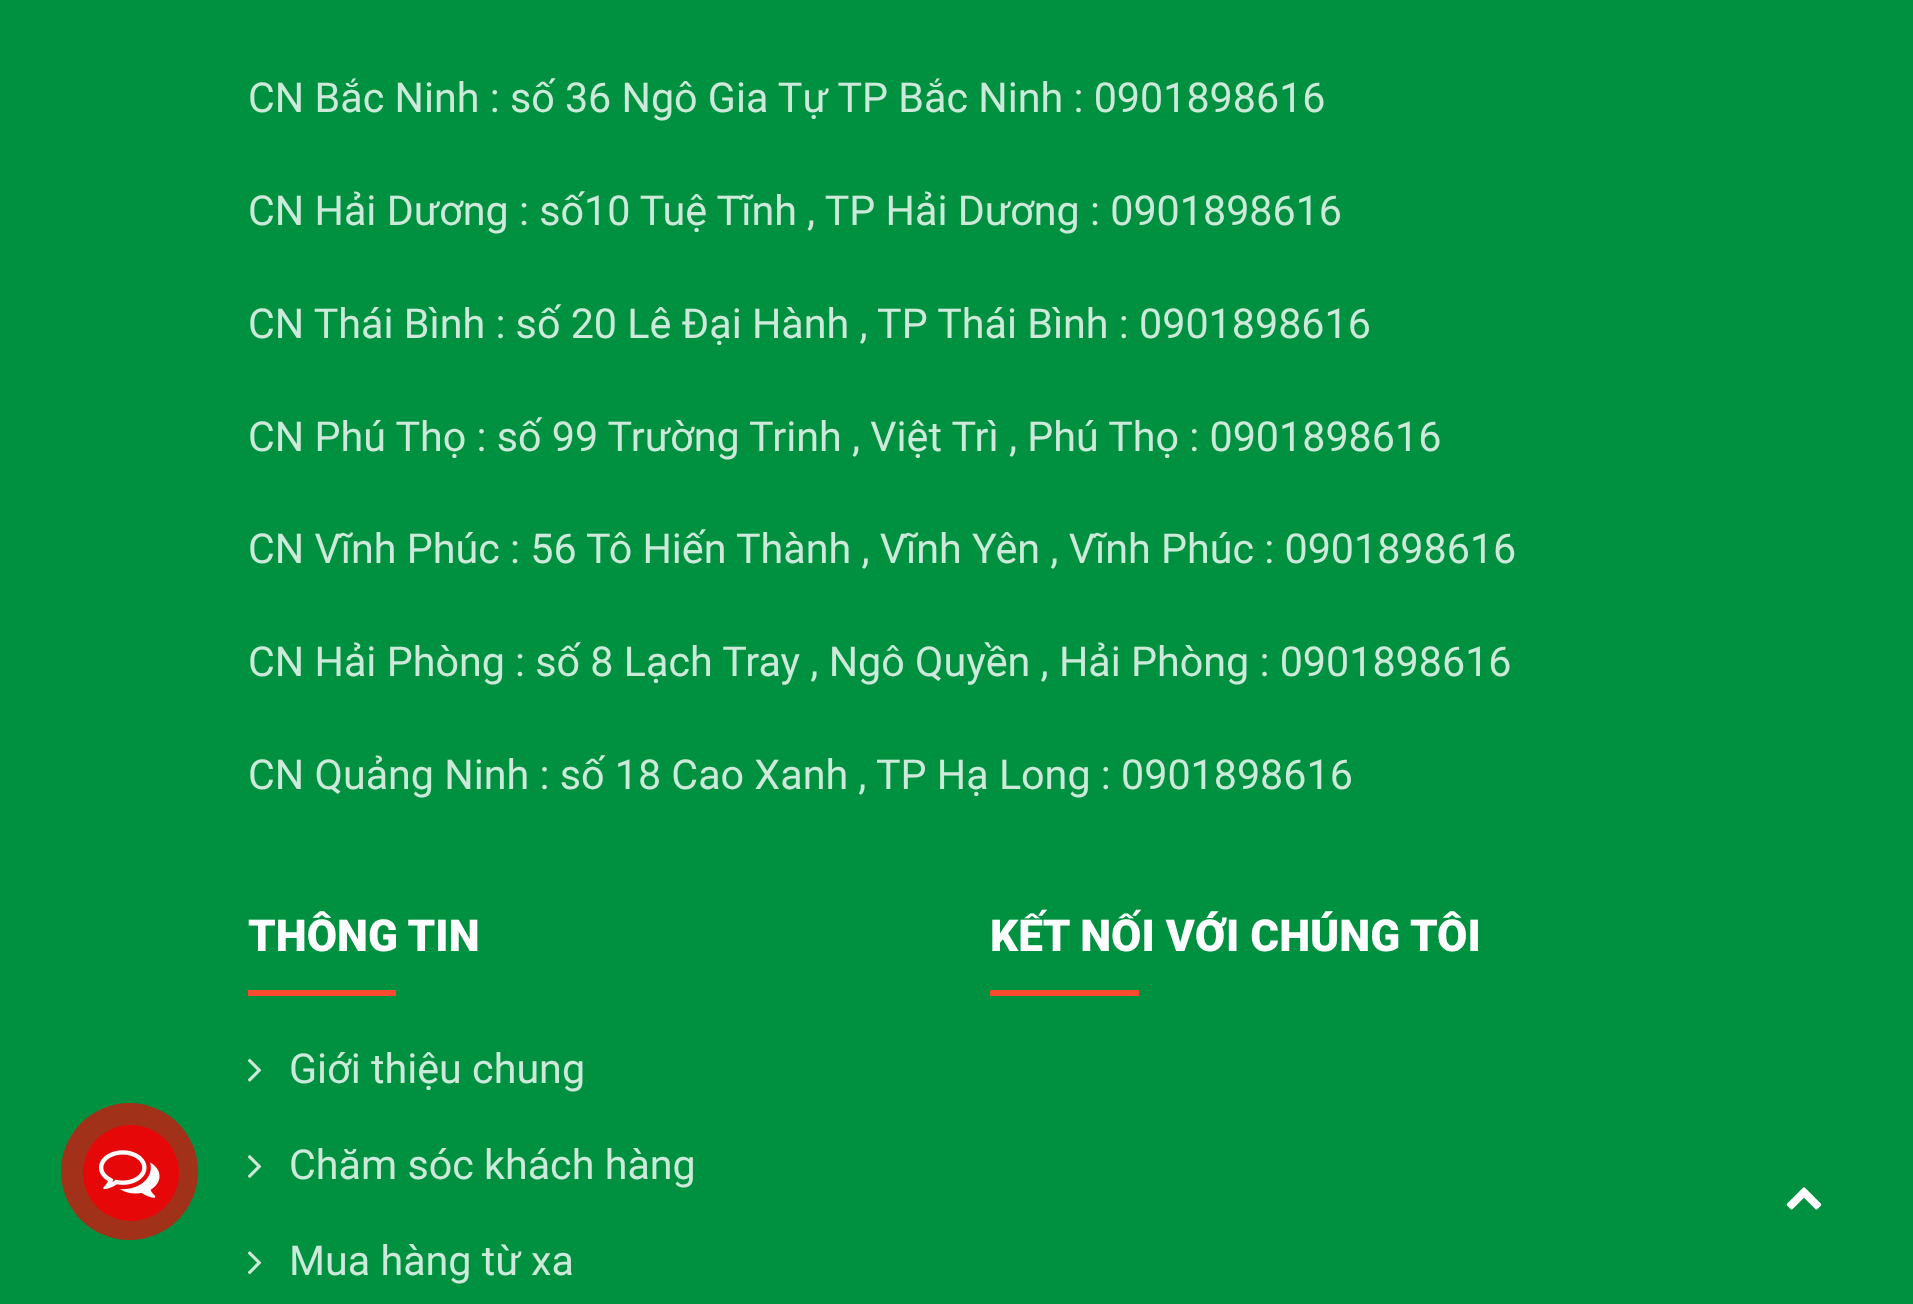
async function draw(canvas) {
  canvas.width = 1913
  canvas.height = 1304
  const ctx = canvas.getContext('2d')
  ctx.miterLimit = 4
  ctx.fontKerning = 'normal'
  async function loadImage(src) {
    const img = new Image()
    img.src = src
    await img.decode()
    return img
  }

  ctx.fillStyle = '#009140'
  ctx.fillRect(0, 0, 1913, 1304)
  ctx.fillStyle = '#a13119'
  ctx.beginPath()
  ctx.arc(129.5, 1171.5, 68.5, 0, 2 * Math.PI)
  ctx.fill()
  ctx.fillStyle = '#e60808'
  ctx.beginPath()
  ctx.arc(131, 1173, 48, 0, 2 * Math.PI)
  ctx.fill()
  ctx.drawImage(await loadImage('image0.png'), 99, 1150, 61, 48)
  ctx.font = '41.25px Roboto'
  ctx.fillStyle = '#cce9d9'
  ctx.fillText('CN Bắc Ninh : số 36 Ngô Gia Tự TP Bắc Ninh : 0901898616', 248, 112)
  ctx.fillText('CN Hải Dương : số10 Tuệ Tĩnh , TP Hải Dương : 0901898616', 248, 225)
  ctx.fillText('CN Thái Bình : số 20 Lê Đại Hành , TP Thái Bình : 0901898616', 248, 338)
  ctx.fillText('CN Phú Thọ : số 99 Trường Trinh , Việt Trì , Phú Thọ : 0901898616', 248, 451)
  ctx.fillText('CN Vĩnh Phúc : 56 Tô Hiến Thành , Vĩnh Yên , Vĩnh Phúc : 0901898616', 248, 563)
  ctx.fillText('CN Hải Phòng : số 8 Lạch Tray , Ngô Quyền , Hải Phòng : 0901898616', 248, 676)
  ctx.fillText('CN Quảng Ninh : số 18 Cao Xanh , TP Hạ Long : 0901898616', 248, 789)
  ctx.font = '900 44px Roboto'
  ctx.fillStyle = '#fff'
  ctx.fillText('THÔNG TIN', 248, 951)
  ctx.fillStyle = '#f84b2f'
  ctx.fillRect(248, 990, 148, 6)
  ctx.drawImage(await loadImage('image1.png'), 247, 1058, 15, 24)
  ctx.font = '41.25px Roboto'
  ctx.fillStyle = '#cce9d9'
  ctx.fillText('Giới thiệu chung', 289, 1083)
  ctx.drawImage(await loadImage('image2.png'), 247, 1155, 15, 23)
  ctx.fillText('Chăm sóc khách hàng', 289, 1179)
  ctx.drawImage(await loadImage('image3.png'), 247, 1251, 15, 24)
  ctx.fillText('Mua hàng từ xa', 289, 1275)
  ctx.font = '900 44px Roboto'
  ctx.fillStyle = '#fff'
  ctx.fillText('KẾT NỐI VỚI CHÚNG TÔI', 990, 951)
  ctx.fillStyle = '#f84b2f'
  ctx.fillRect(990, 990, 149, 6)
  ctx.drawImage(await loadImage('image4.png'), 1786, 1187, 36, 23)
}

draw(document.querySelector('canvas'))
